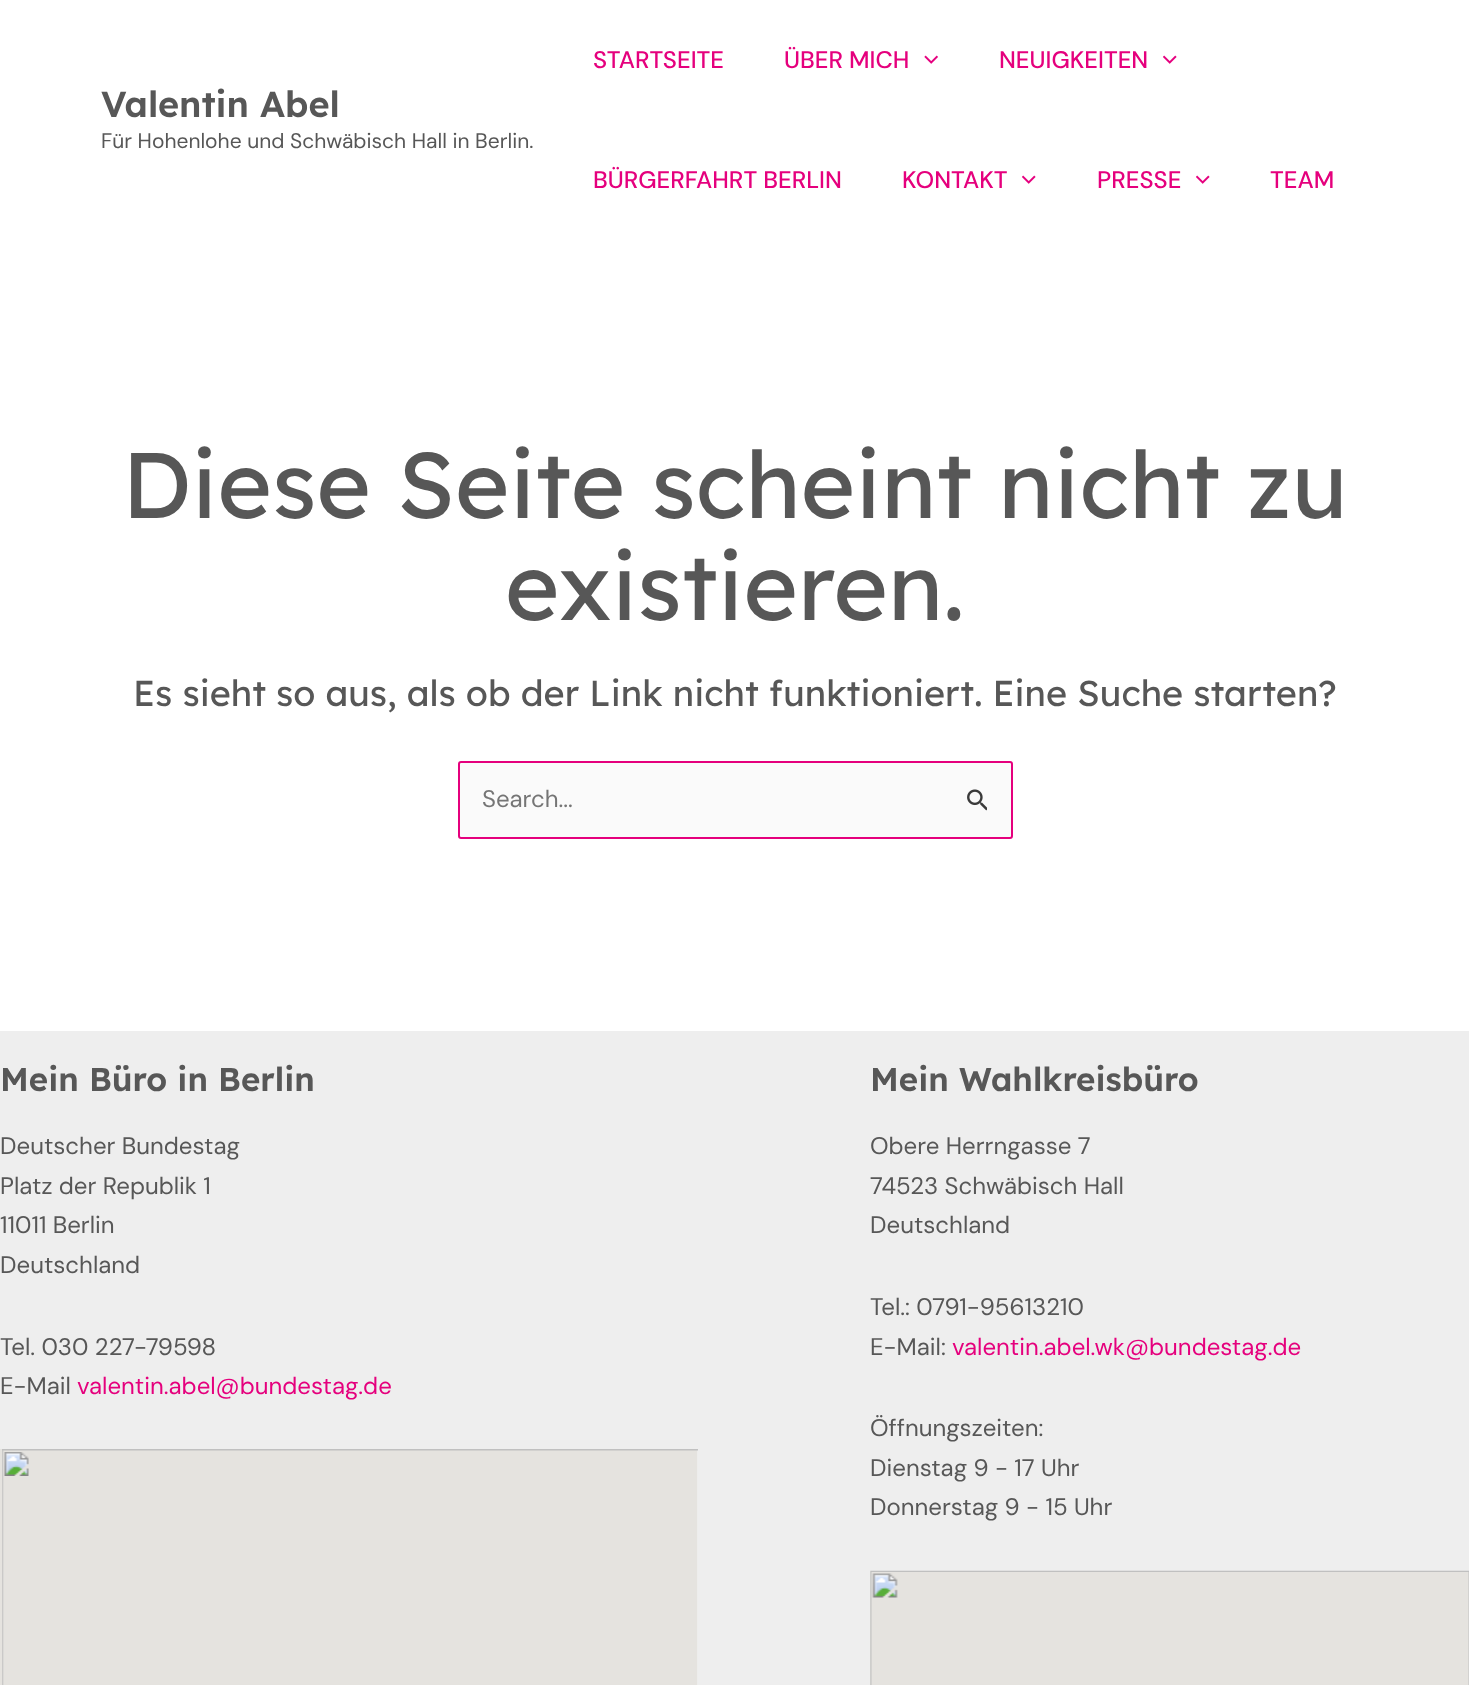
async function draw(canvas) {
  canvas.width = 1469
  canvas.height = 1685
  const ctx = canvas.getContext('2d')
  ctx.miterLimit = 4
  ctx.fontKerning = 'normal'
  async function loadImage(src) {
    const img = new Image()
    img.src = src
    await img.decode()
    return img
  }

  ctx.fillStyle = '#fff'
  ctx.fillRect(0, 0, 1469, 1685)
  ctx.font = '600 36px Lexend'
  ctx.fillStyle = '#575757'
  ctx.fillText('Valentin Abel', 101, 117)
  ctx.font = '21px DM Sans'
  ctx.fillText('Für Hohenlohe und Schwäbisch Hall in Berlin.', 101, 148)
  ctx.font = '500 24px DM Sans'
  ctx.fillStyle = '#e5007d'
  ctx.fillText('STARTSEITE', 593, 68)
  ctx.fillText('ÜBER MICH', 784, 68)
  ctx.drawImage(await loadImage('image0.png'), 924, 55, 14, 9)
  ctx.fillText('NEUIGKEITEN', 999, 68)
  ctx.drawImage(await loadImage('image1.png'), 1163, 55, 14, 9)
  ctx.fillText('BÜRGERFAHRT BERLIN', 593, 188)
  ctx.fillText('KONTAKT', 902, 188)
  ctx.drawImage(await loadImage('image1.png'), 1022, 175, 14, 9)
  ctx.fillText('PRESSE', 1097, 188)
  ctx.drawImage(await loadImage('image1.png'), 1196, 175, 14, 9)
  ctx.fillText('TEAM', 1270, 188)
  ctx.font = '93px Lexend'
  ctx.fillStyle = '#575757'
  ctx.fillText('Diese Seite scheint nicht zu', 122, 518)
  ctx.fillText('existieren.', 505, 620)
  ctx.font = '36px Lexend'
  ctx.fillText('Es sieht so aus, als ob der Link nicht funktioniert. Eine Suche starten?', 133, 706)
  ctx.fillStyle = '#fafafa'
  ctx.beginPath()
  ctx.roundRect(459, 762, 553, 76, 2)
  ctx.fill()
  ctx.strokeStyle = '#e5007d'
  ctx.lineWidth = 2
  ctx.stroke()
  ctx.font = '24px DM Sans'
  ctx.fillStyle = '#757575'
  ctx.fillText('Search...', 482, 807)
  ctx.drawImage(await loadImage('image2.png'), 967, 789, 20, 22)
  ctx.fillStyle = '#eee'
  ctx.fillRect(0, 1031, 1469, 654)
  ctx.font = '600 33px Lexend'
  ctx.fillStyle = '#575757'
  ctx.fillText('Mein Büro in Berlin', 0, 1091)
  ctx.font = '24px DM Sans'
  ctx.fillText('Deutscher Bundestag', 0, 1154)
  ctx.fillText('Platz der Republik 1', 0, 1194)
  ctx.fillText('11011 Berlin', 0, 1233)
  ctx.fillText('Deutschland', 0, 1273)
  ctx.fillText('Tel. 030 227-79598', 0, 1355)
  ctx.fillText('E-Mail', 0, 1394)
  ctx.fillStyle = '#e5007d'
  ctx.fillText('valentin.abel@bundestag.de', 77, 1394)
  ctx.drawImage(await loadImage('image3.png'), 0, 1449, 698, 236)
  ctx.font = '600 33px Lexend'
  ctx.fillStyle = '#575757'
  ctx.fillText('Mein Wahlkreisbüro', 870, 1091)
  ctx.font = '24px DM Sans'
  ctx.fillText('Obere Herrngasse 7', 870, 1154)
  ctx.fillText('74523 Schwäbisch Hall', 870, 1194)
  ctx.fillText('Deutschland', 870, 1233)
  ctx.fillText('Tel.: 0791-95613210', 870, 1315)
  ctx.fillText('E-Mail:', 870, 1355)
  ctx.fillStyle = '#e5007d'
  ctx.fillText('valentin.abel.wk@bundestag.de', 952, 1355)
  ctx.fillStyle = '#575757'
  ctx.fillText('Öffnungszeiten:', 870, 1436)
  ctx.fillText('Dienstag 9 - 17 Uhr', 870, 1476)
  ctx.fillText('Donnerstag 9 - 15 Uhr', 870, 1515)
  ctx.drawImage(await loadImage('image4.png'), 870, 1570, 599, 115)
}

draw(document.querySelector('canvas'))
